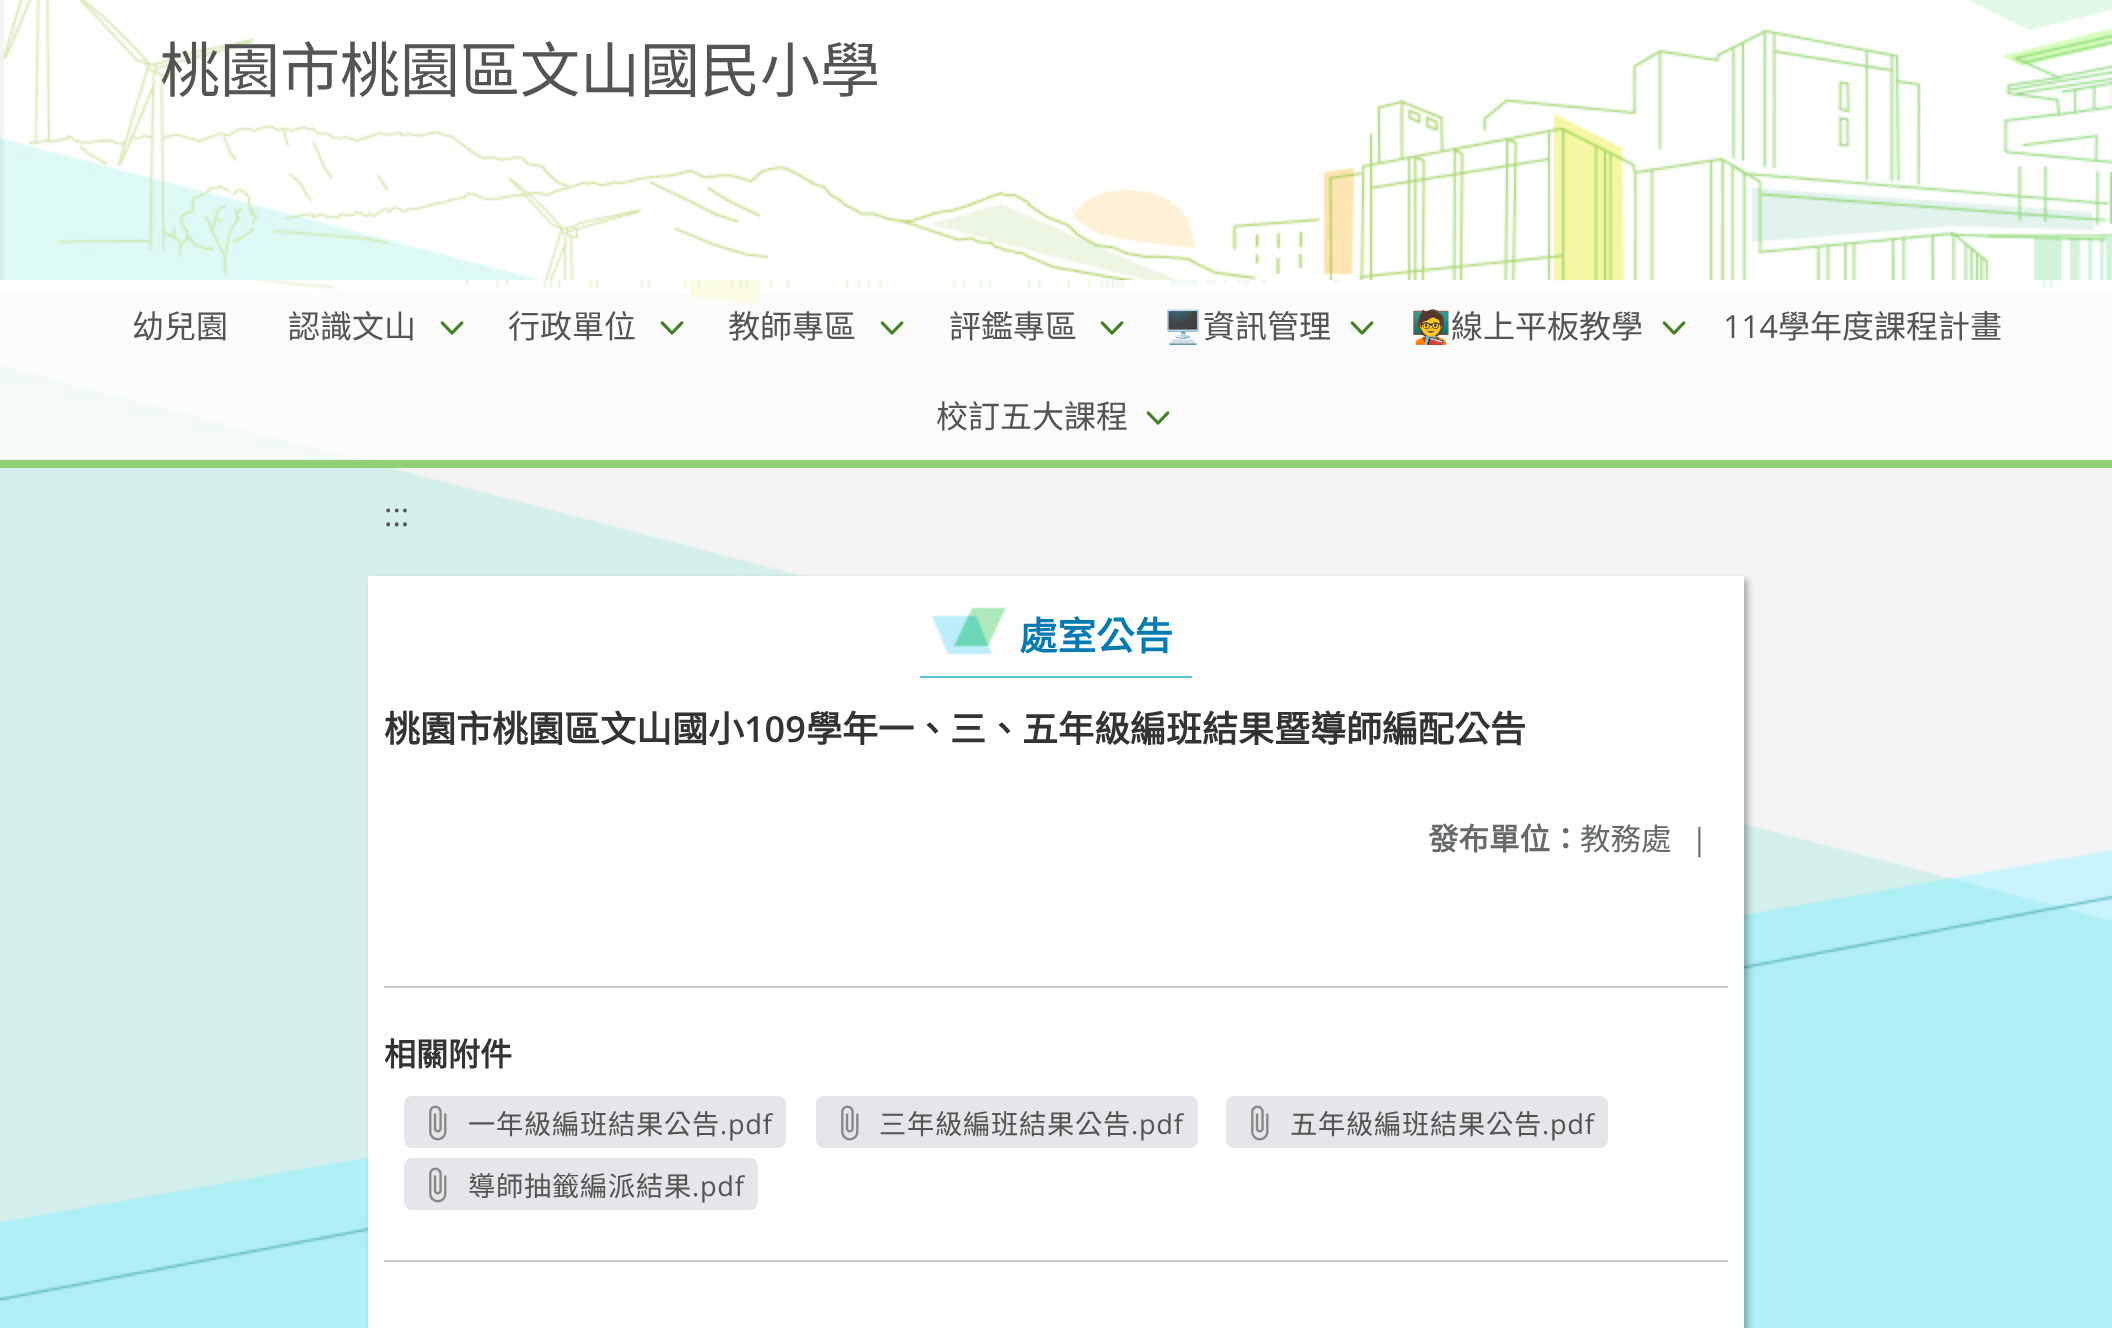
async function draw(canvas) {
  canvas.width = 2112
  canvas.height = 1328
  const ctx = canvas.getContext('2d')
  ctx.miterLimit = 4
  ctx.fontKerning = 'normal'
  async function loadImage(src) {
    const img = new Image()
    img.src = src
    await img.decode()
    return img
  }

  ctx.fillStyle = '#fff'
  ctx.fillRect(0, 0, 2112, 1328)
  ctx.drawImage(await loadImage('image0.png'), 0, 280, 2112, 1048)
  ctx.drawImage(await loadImage('image1.png'), 0, 0, 2112, 280)
  ctx.font = '60px Noto Sans CJK TC'
  ctx.fillStyle = '#545454'
  ctx.fillText('桃園市桃園區文山國民小學', 160, 92)
  ctx.fillStyle = '#ffffffb3'
  ctx.fillRect(0, 280, 2112, 180)
  ctx.fillStyle = '#91d075'
  ctx.fillRect(0, 460, 2112, 8)
  ctx.font = '32px Noto Sans CJK TC'
  ctx.fillStyle = '#545454'
  ctx.fillText('幼兒園', 132, 338)
  ctx.fillText('認識文山', 288, 338)
  ctx.drawImage(await loadImage('image2.png'), 440, 321, 24, 14)
  ctx.fillText('行政單位', 508, 338)
  ctx.drawImage(await loadImage('image2.png'), 660, 321, 24, 14)
  ctx.fillText('教師專區', 728, 338)
  ctx.drawImage(await loadImage('image2.png'), 880, 321, 24, 14)
  ctx.fillText('評鑑專區', 949, 338)
  ctx.drawImage(await loadImage('image2.png'), 1100, 321, 24, 14)
  ctx.font = '32px Noto Color Emoji'
  ctx.fillText('🖥️', 1163, 338)
  ctx.font = '32px Noto Sans CJK TC'
  ctx.fillText('資訊管理', 1203, 338)
  ctx.drawImage(await loadImage('image2.png'), 1350, 321, 24, 14)
  ctx.font = '32px Noto Color Emoji'
  ctx.fillText('🧑‍🏫', 1411, 338)
  ctx.font = '32px Noto Sans CJK TC'
  ctx.fillText('線上平板教學', 1451, 338)
  ctx.drawImage(await loadImage('image2.png'), 1662, 321, 24, 14)
  ctx.font = '32px Open Sans'
  ctx.fillText('114', 1723, 338)
  ctx.font = '32px Noto Sans CJK TC'
  ctx.fillText('學年度課程計畫', 1778, 338)
  ctx.fillText('校訂五大課程', 936, 428)
  ctx.drawImage(await loadImage('image2.png'), 1146, 411, 24, 14)
  ctx.font = '32px Open Sans'
  ctx.fillText(':::', 384, 526)
  ctx.fillStyle = '#0000004d'
  ctx.filter = 'blur(3px)'
  ctx.beginPath()
  ctx.rect(372, 580, 1376, 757)
  ctx.fill()
  ctx.filter = 'none'
  ctx.fillStyle = '#fff'
  ctx.fillRect(368, 576, 1376, 752)
  ctx.fillStyle = '#58c3e0'
  ctx.fillRect(920, 676, 272, 2)
  ctx.drawImage(await loadImage('image3.png'), 931, 607, 76, 48)
  ctx.font = 'bold 38.5px Noto Sans CJK TC'
  ctx.fillStyle = '#057bb5'
  ctx.fillText('處室公告', 1019, 650)
  ctx.font = 'bold 36px Noto Sans CJK TC'
  ctx.fillStyle = '#333'
  ctx.fillText('桃園市桃園區文山國小', 384, 742)
  ctx.font = '600 36px Open Sans'
  ctx.fillText('109', 744, 742)
  ctx.font = 'bold 36px Noto Sans CJK TC'
  ctx.fillText('學年一、三、五年級編班結果暨導師編配公告', 806, 742)
  ctx.font = 'bold 30.5px Noto Sans CJK TC'
  ctx.fillStyle = '#676a6c'
  ctx.fillText('發布單位：', 1428, 850)
  ctx.font = '30.5px Noto Sans CJK TC'
  ctx.fillText('教務處', 1580, 850)
  ctx.font = '30.5px Open Sans'
  ctx.fillText('|', 1691, 850)
  ctx.fillStyle = '#ccc'
  ctx.fillRect(384, 986, 1344, 2)
  ctx.font = 'bold 32px Noto Sans CJK TC'
  ctx.fillStyle = '#333'
  ctx.fillText('相關附件', 384, 1066)
  ctx.fillStyle = '#e5e6e9'
  ctx.beginPath()
  ctx.roundRect(405, 1097, 380, 50, 7)
  ctx.fill()
  ctx.strokeStyle = '#e5e6e9'
  ctx.lineWidth = 2
  ctx.stroke()
  ctx.drawImage(await loadImage('image4.png'), 429, 1105, 18, 36)
  ctx.letterSpacing = '0.75px'
  ctx.font = '27.25px Noto Sans CJK TC'
  ctx.fillStyle = '#545454'
  ctx.fillText('一年級編班結果公告', 468, 1134)
  ctx.font = '27.25px Open Sans'
  ctx.fillText('.pdf', 720, 1134)
  ctx.fillStyle = '#e5e6e9'
  ctx.beginPath()
  ctx.roundRect(817, 1097, 380, 50, 7)
  ctx.fill()
  ctx.stroke()
  ctx.drawImage(await loadImage('image4.png'), 841, 1105, 18, 36)
  ctx.font = '27.25px Noto Sans CJK TC'
  ctx.fillStyle = '#545454'
  ctx.fillText('三年級編班結果公告', 879, 1134)
  ctx.font = '27.25px Open Sans'
  ctx.fillText('.pdf', 1131, 1134)
  ctx.fillStyle = '#e5e6e9'
  ctx.beginPath()
  ctx.roundRect(1227, 1097, 380, 50, 7)
  ctx.fill()
  ctx.stroke()
  ctx.drawImage(await loadImage('image4.png'), 1251, 1105, 18, 36)
  ctx.font = '27.25px Noto Sans CJK TC'
  ctx.fillStyle = '#545454'
  ctx.fillText('五年級編班結果公告', 1290, 1134)
  ctx.font = '27.25px Open Sans'
  ctx.fillText('.pdf', 1542, 1134)
  ctx.fillStyle = '#e5e6e9'
  ctx.beginPath()
  ctx.roundRect(405, 1159, 352, 50, 7)
  ctx.fill()
  ctx.stroke()
  ctx.drawImage(await loadImage('image4.png'), 429, 1167, 18, 36)
  ctx.font = '27.25px Noto Sans CJK TC'
  ctx.fillStyle = '#545454'
  ctx.fillText('導師抽籤編派結果', 468, 1196)
  ctx.font = '27.25px Open Sans'
  ctx.fillText('.pdf', 692, 1196)
  ctx.fillStyle = '#ccc'
  ctx.fillRect(384, 1260, 1344, 2)
}

draw(document.querySelector('canvas'))
